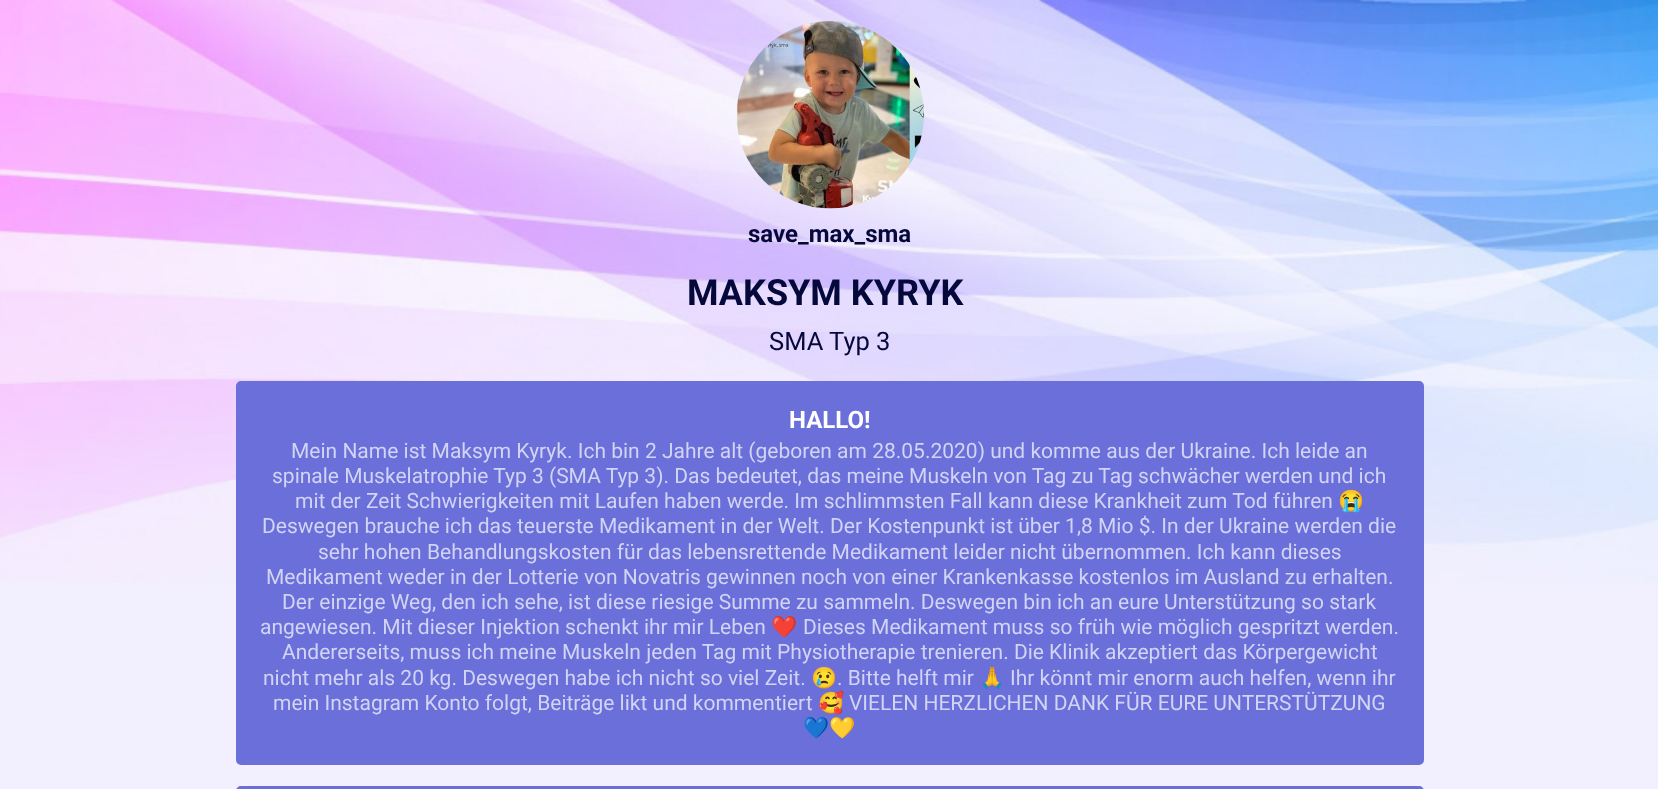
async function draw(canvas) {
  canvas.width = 1658
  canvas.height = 789
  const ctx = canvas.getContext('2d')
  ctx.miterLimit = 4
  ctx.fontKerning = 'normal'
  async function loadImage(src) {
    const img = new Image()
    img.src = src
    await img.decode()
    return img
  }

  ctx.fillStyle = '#f2f0fe'
  ctx.fillRect(0, 0, 1658, 789)
  ctx.drawImage(await loadImage('image0.png'), 0, 0, 1658, 583)
  ctx.drawImage(await loadImage('image1.png'), 736, 21, 188, 188)
  ctx.font = 'bold 24px Roboto'
  ctx.fillStyle = '#05083a'
  ctx.fillText('save_max_sma', 748, 242)
  ctx.font = 'bold 36px Roboto'
  ctx.fillText('MAKSYM KYRYK', 687, 305)
  ctx.font = '25.5px Roboto'
  ctx.fillText('SMA Typ 3', 769, 350)
  ctx.fillStyle = '#6a6fd9'
  ctx.beginPath()
  ctx.roundRect(237.5, 382.5, 1185, 381, 3.5)
  ctx.fill()
  ctx.strokeStyle = '#6a6fd9'
  ctx.lineWidth = 3
  ctx.stroke()
  ctx.font = 'bold 24px Roboto'
  ctx.fillStyle = '#fff'
  ctx.fillText('HALLO!', 789, 428)
  ctx.font = '21px Roboto'
  ctx.fillStyle = '#d2d4f4'
  ctx.fillText('Mein Name ist Maksym Kyryk. Ich bin 2 Jahre alt (geboren am 28.05.2020) und komme aus der Ukraine. Ich leide an', 291, 458)
  ctx.fillText('spinale Muskelatrophie Typ 3 (SMA Typ 3). Das bedeutet, das meine Muskeln von Tag zu Tag schwächer werden und ich', 272, 483)
  ctx.fillText('mit der Zeit Schwierigkeiten mit Laufen haben werde. Im schlimmsten Fall kann diese Krankheit zum Tod führen', 295, 508)
  ctx.font = '21px Noto Color Emoji'
  ctx.fillText('😭', 1338, 508)
  ctx.font = '21px Roboto'
  ctx.fillText('Deswegen brauche ich das teuerste Medikament in der Welt. Der Kostenpunkt ist über 1,8 Mio $. In der Ukraine werden die', 262, 533)
  ctx.fillText('sehr hohen Behandlungskosten für das lebensrettende Medikament leider nicht übernommen. Ich kann dieses', 318, 559)
  ctx.fillText('Medikament weder in der Lotterie von Novatris gewinnen noch von einer Krankenkasse kostenlos im Ausland zu erhalten.', 266, 584)
  ctx.fillText('Der einzige Weg, den ich sehe, ist diese riesige Summe zu sammeln. Deswegen bin ich an eure Unterstützung so stark', 282, 609)
  ctx.fillText('angewiesen. Mit dieser Injektion schenkt ihr mir Leben', 260, 634)
  ctx.font = '21px Noto Color Emoji'
  ctx.fillText('❤️', 771, 634)
  ctx.font = '21px Roboto'
  ctx.fillText('Dieses Medikament muss so früh wie möglich gespritzt werden.', 803, 634)
  ctx.fillText('Andererseits, muss ich meine Muskeln jeden Tag mit Physiotherapie trenieren. Die Klinik akzeptiert das Körpergewicht', 282, 659)
  ctx.fillText('nicht mehr als 20 kg. Deswegen habe ich nicht so viel Zeit.', 263, 685)
  ctx.font = '21px Noto Color Emoji'
  ctx.fillText('😢', 811, 685)
  ctx.font = '21px Roboto'
  ctx.fillText('. Bitte helft mir', 837, 685)
  ctx.font = '21px Noto Color Emoji'
  ctx.fillText('🙏', 979, 685)
  ctx.font = '21px Roboto'
  ctx.fillText('Ihr könnt mir enorm auch helfen, wenn ihr', 1010, 685)
  ctx.fillText('mein Instagram Konto folgt, Beiträge likt und kommentiert', 273, 710)
  ctx.font = '21px Noto Color Emoji'
  ctx.fillText('🥰', 818, 710)
  ctx.font = '21px Roboto'
  ctx.fillText('VIELEN HERZLICHEN DANK FÜR EURE UNTERSTÜTZUNG', 849, 710)
  ctx.font = '21px Noto Color Emoji'
  ctx.fillText('💙💛', 803, 735)
  ctx.beginPath()
  ctx.roundRect(237.5, 787.5, 1185, 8, 3.5)
  ctx.stroke()
}

draw(document.querySelector('canvas'))
